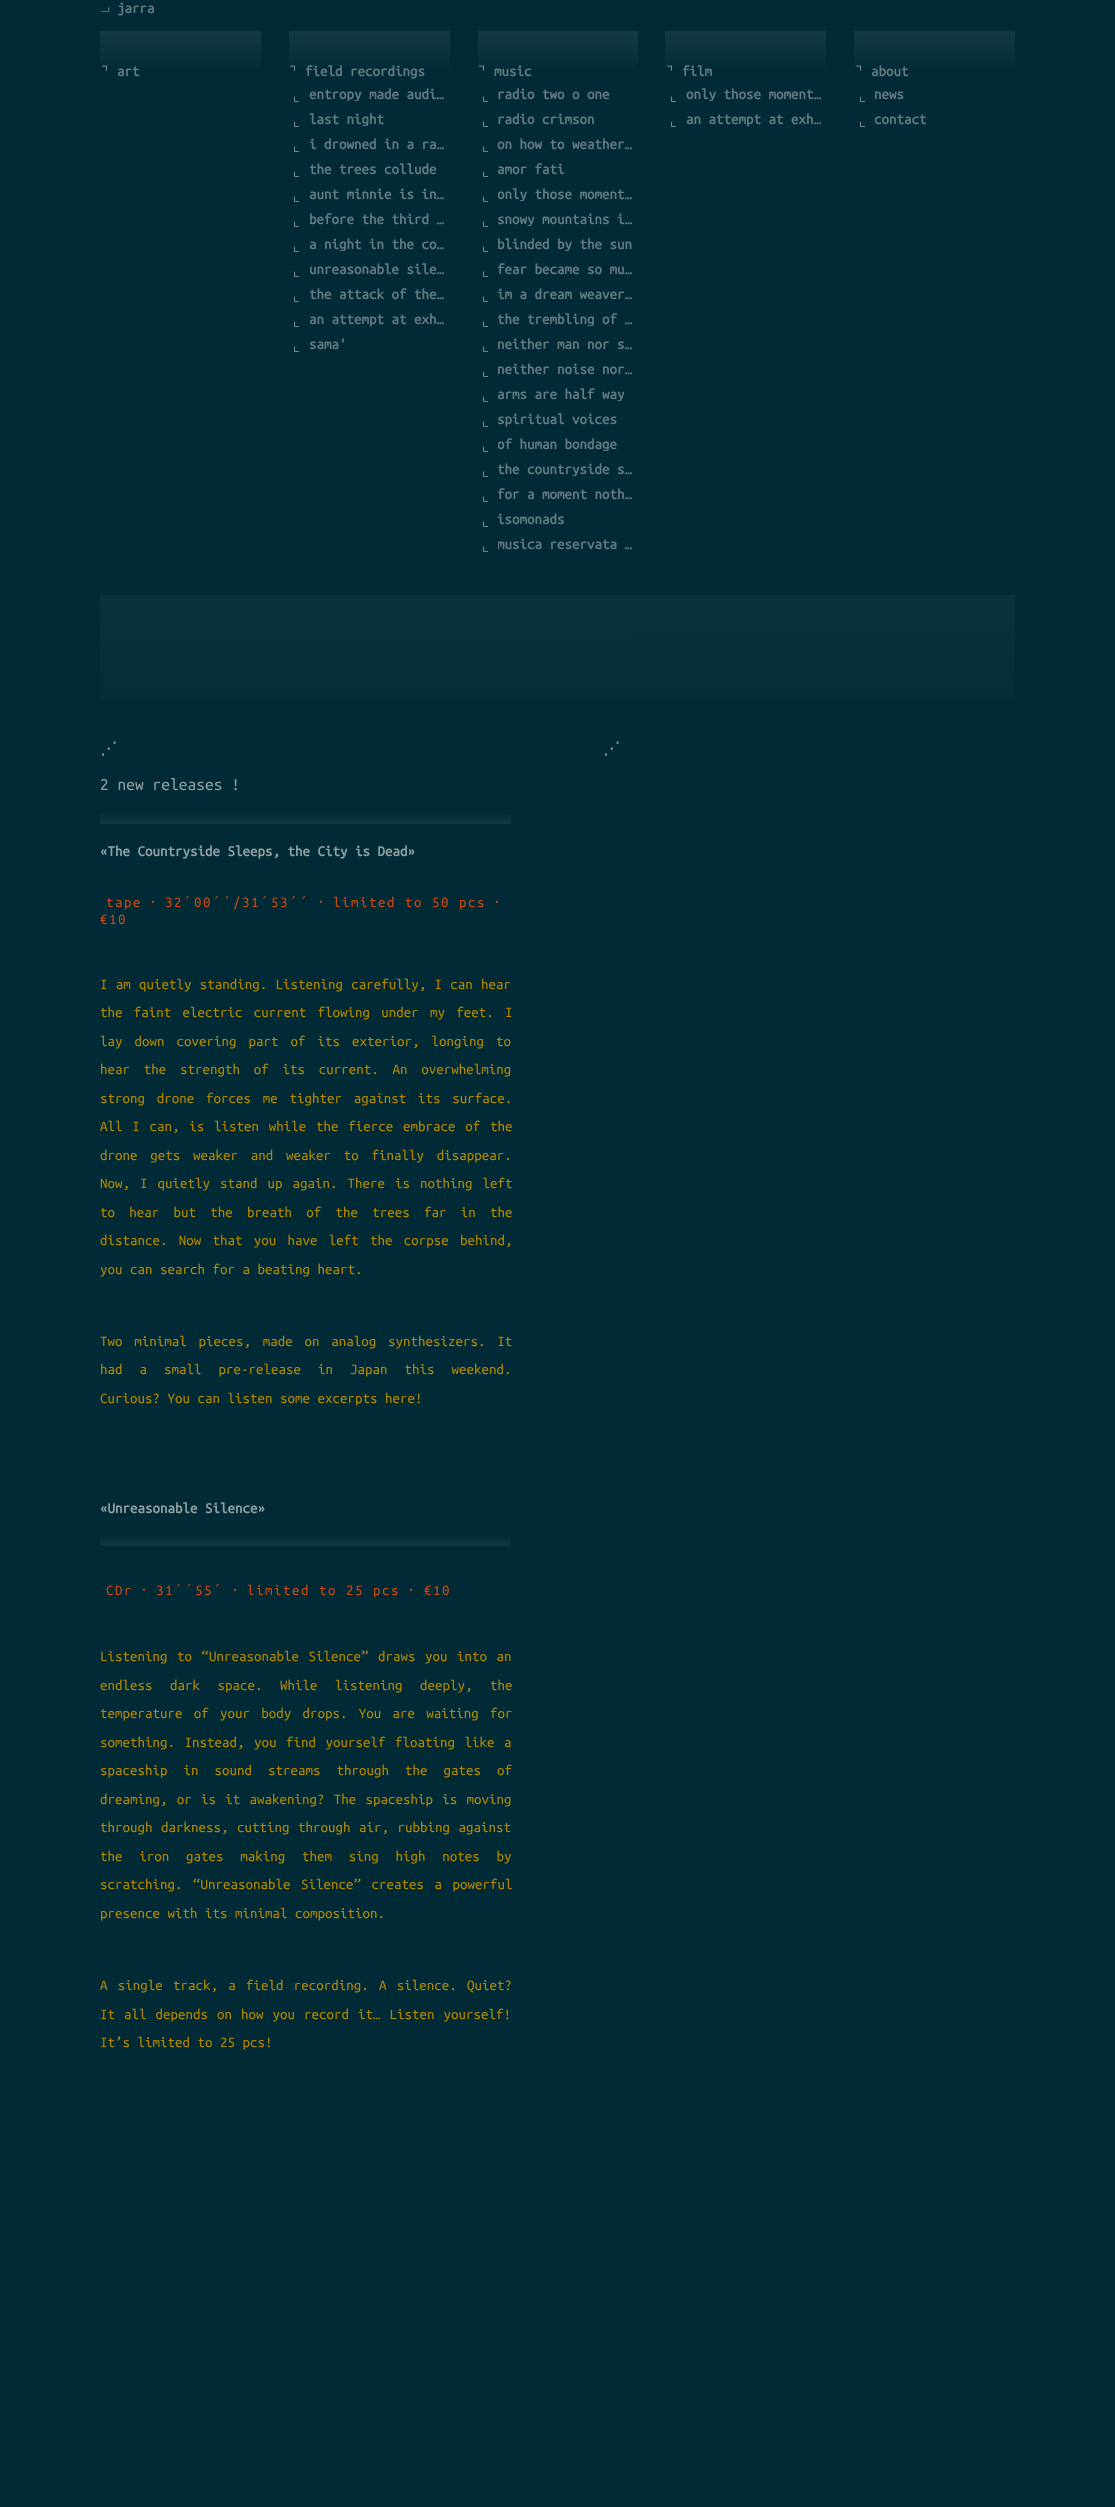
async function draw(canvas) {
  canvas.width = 1115
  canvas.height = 2507
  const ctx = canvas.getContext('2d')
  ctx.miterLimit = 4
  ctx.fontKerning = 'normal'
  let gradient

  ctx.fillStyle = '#002b36'
  ctx.fillRect(0, 0, 1115, 2507)
  ctx.font = '15px FreeSerif'
  ctx.fillStyle = '#93a1a1'
  ctx.fillText('⏗', 100, 13)
  ctx.font = 'bold 15px Ubuntu Mono'
  ctx.fillStyle = '#657b83'
  ctx.fillText('jarra', 117, 13)
  gradient = ctx.createLinearGradient(181, -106, 181, 580)
  gradient.addColorStop(0, '#586e75')
  gradient.addColorStop(0.26, '#002b36')
  ctx.fillStyle = gradient
  ctx.fillRect(100, 31, 161, 36)
  ctx.font = '15px DejaVu Sans Mono'
  ctx.fillStyle = '#93a1a1'
  ctx.fillText('⌝', 100, 76)
  ctx.font = 'bold 15px Ubuntu Mono'
  ctx.fillStyle = '#657b83'
  ctx.fillText('art', 117, 76)
  gradient = ctx.createLinearGradient(369, -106, 369, 580)
  gradient.addColorStop(0, '#586e75')
  gradient.addColorStop(0.26, '#002b36')
  ctx.fillStyle = gradient
  ctx.fillRect(289, 31, 161, 36)
  ctx.font = '15px DejaVu Sans Mono'
  ctx.fillStyle = '#93a1a1'
  ctx.fillText('⌝', 288, 76)
  ctx.font = 'bold 15px Ubuntu Mono'
  ctx.fillStyle = '#657b83'
  ctx.fillText('field recordings', 305, 76)
  ctx.font = '15px DejaVu Sans Mono'
  ctx.fillStyle = '#93a1a1'
  ctx.fillText('⌞', 292, 101)
  ctx.save()
  ctx.beginPath()
  ctx.rect(309, 86, 141, 15)
  ctx.clip()
  ctx.font = 'bold 15px Ubuntu Mono'
  ctx.fillStyle = '#657b83'
  ctx.fillText('entropy made audi…', 309, 99)
  ctx.restore()
  ctx.fillText('⌞', 292, 126)
  ctx.save()
  ctx.beginPath()
  ctx.rect(309, 111, 141, 15)
  ctx.clip()
  ctx.font = 'bold 15px Ubuntu Mono'
  ctx.fillStyle = '#657b83'
  ctx.fillText('last night', 309, 124)
  ctx.restore()
  ctx.fillText('⌞', 292, 151)
  ctx.font = 'bold 15px Ubuntu Mono'
  ctx.fillStyle = '#657b83'
  ctx.fillText('i drowned in a ra…', 309, 149)
  ctx.font = '15px DejaVu Sans Mono'
  ctx.fillStyle = '#93a1a1'
  ctx.fillText('⌞', 292, 176)
  ctx.font = 'bold 15px Ubuntu Mono'
  ctx.fillStyle = '#657b83'
  ctx.fillText('the trees collude', 309, 174)
  ctx.font = '15px DejaVu Sans Mono'
  ctx.fillStyle = '#93a1a1'
  ctx.fillText('⌞', 292, 201)
  ctx.font = 'bold 15px Ubuntu Mono'
  ctx.fillStyle = '#657b83'
  ctx.fillText('aunt minnie is in…', 309, 199)
  ctx.font = '15px DejaVu Sans Mono'
  ctx.fillStyle = '#93a1a1'
  ctx.fillText('⌞', 292, 226)
  ctx.font = 'bold 15px Ubuntu Mono'
  ctx.fillStyle = '#657b83'
  ctx.fillText('before the third …', 309, 224)
  ctx.font = '15px DejaVu Sans Mono'
  ctx.fillStyle = '#93a1a1'
  ctx.fillText('⌞', 292, 251)
  ctx.save()
  ctx.beginPath()
  ctx.rect(309, 236, 141, 15)
  ctx.clip()
  ctx.font = 'bold 15px Ubuntu Mono'
  ctx.fillStyle = '#657b83'
  ctx.fillText('a night in the co…', 309, 249)
  ctx.restore()
  ctx.fillText('⌞', 292, 276)
  ctx.font = 'bold 15px Ubuntu Mono'
  ctx.fillStyle = '#657b83'
  ctx.fillText('unreasonable sile…', 309, 274)
  ctx.font = '15px DejaVu Sans Mono'
  ctx.fillStyle = '#93a1a1'
  ctx.fillText('⌞', 292, 301)
  ctx.font = 'bold 15px Ubuntu Mono'
  ctx.fillStyle = '#657b83'
  ctx.fillText('the attack of the…', 309, 299)
  ctx.font = '15px DejaVu Sans Mono'
  ctx.fillStyle = '#93a1a1'
  ctx.fillText('⌞', 292, 326)
  ctx.font = 'bold 15px Ubuntu Mono'
  ctx.fillStyle = '#657b83'
  ctx.fillText('an attempt at exh…', 309, 324)
  ctx.font = '15px DejaVu Sans Mono'
  ctx.fillStyle = '#93a1a1'
  ctx.fillText('⌞', 292, 351)
  ctx.font = 'bold 15px Ubuntu Mono'
  ctx.fillStyle = '#657b83'
  ctx.fillText('sama\'', 309, 349)
  gradient = ctx.createLinearGradient(558, -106, 558, 580)
  gradient.addColorStop(0, '#586e75')
  gradient.addColorStop(0.26, '#002b36')
  ctx.fillStyle = gradient
  ctx.fillRect(478, 31, 160, 36)
  ctx.font = '15px DejaVu Sans Mono'
  ctx.fillStyle = '#93a1a1'
  ctx.fillText('⌝', 477, 76)
  ctx.font = 'bold 15px Ubuntu Mono'
  ctx.fillStyle = '#657b83'
  ctx.fillText('music', 494, 76)
  ctx.font = '15px DejaVu Sans Mono'
  ctx.fillStyle = '#93a1a1'
  ctx.fillText('⌞', 481, 101)
  ctx.font = 'bold 15px Ubuntu Mono'
  ctx.fillStyle = '#657b83'
  ctx.fillText('radio two o one', 497, 99)
  ctx.font = '15px DejaVu Sans Mono'
  ctx.fillStyle = '#93a1a1'
  ctx.fillText('⌞', 481, 126)
  ctx.font = 'bold 15px Ubuntu Mono'
  ctx.fillStyle = '#657b83'
  ctx.fillText('radio crimson', 497, 124)
  ctx.font = '15px DejaVu Sans Mono'
  ctx.fillStyle = '#93a1a1'
  ctx.fillText('⌞', 481, 151)
  ctx.font = 'bold 15px Ubuntu Mono'
  ctx.fillStyle = '#657b83'
  ctx.fillText('on how to weather…', 497, 149)
  ctx.font = '15px DejaVu Sans Mono'
  ctx.fillStyle = '#93a1a1'
  ctx.fillText('⌞', 481, 176)
  ctx.font = 'bold 15px Ubuntu Mono'
  ctx.fillStyle = '#657b83'
  ctx.fillText('amor fati', 497, 174)
  ctx.font = '15px DejaVu Sans Mono'
  ctx.fillStyle = '#93a1a1'
  ctx.fillText('⌞', 481, 201)
  ctx.save()
  ctx.beginPath()
  ctx.rect(498, 186, 141, 15)
  ctx.clip()
  ctx.font = 'bold 15px Ubuntu Mono'
  ctx.fillStyle = '#657b83'
  ctx.fillText('only those moment…', 497, 199)
  ctx.restore()
  ctx.fillText('⌞', 481, 226)
  ctx.save()
  ctx.beginPath()
  ctx.rect(498, 211, 141, 15)
  ctx.clip()
  ctx.font = 'bold 15px Ubuntu Mono'
  ctx.fillStyle = '#657b83'
  ctx.fillText('snowy mountains i…', 497, 224)
  ctx.restore()
  ctx.fillText('⌞', 481, 251)
  ctx.save()
  ctx.beginPath()
  ctx.rect(498, 236, 141, 15)
  ctx.clip()
  ctx.font = 'bold 15px Ubuntu Mono'
  ctx.fillStyle = '#657b83'
  ctx.fillText('blinded by the sun', 497, 249)
  ctx.restore()
  ctx.fillText('⌞', 481, 276)
  ctx.font = 'bold 15px Ubuntu Mono'
  ctx.fillStyle = '#657b83'
  ctx.fillText('fear became so mu…', 497, 274)
  ctx.font = '15px DejaVu Sans Mono'
  ctx.fillStyle = '#93a1a1'
  ctx.fillText('⌞', 481, 301)
  ctx.font = 'bold 15px Ubuntu Mono'
  ctx.fillStyle = '#657b83'
  ctx.fillText('im a dream weaver…', 497, 299)
  ctx.font = '15px DejaVu Sans Mono'
  ctx.fillStyle = '#93a1a1'
  ctx.fillText('⌞', 481, 326)
  ctx.save()
  ctx.beginPath()
  ctx.rect(498, 311, 141, 15)
  ctx.clip()
  ctx.font = 'bold 15px Ubuntu Mono'
  ctx.fillStyle = '#657b83'
  ctx.fillText('the trembling of …', 497, 324)
  ctx.restore()
  ctx.fillText('⌞', 481, 351)
  ctx.font = 'bold 15px Ubuntu Mono'
  ctx.fillStyle = '#657b83'
  ctx.fillText('neither man nor s…', 497, 349)
  ctx.font = '15px DejaVu Sans Mono'
  ctx.fillStyle = '#93a1a1'
  ctx.fillText('⌞', 481, 376)
  ctx.font = 'bold 15px Ubuntu Mono'
  ctx.fillStyle = '#657b83'
  ctx.fillText('neither noise nor…', 497, 374)
  ctx.font = '15px DejaVu Sans Mono'
  ctx.fillStyle = '#93a1a1'
  ctx.fillText('⌞', 481, 401)
  ctx.save()
  ctx.beginPath()
  ctx.rect(498, 386, 141, 15)
  ctx.clip()
  ctx.font = 'bold 15px Ubuntu Mono'
  ctx.fillStyle = '#657b83'
  ctx.fillText('arms are half way', 497, 399)
  ctx.restore()
  ctx.fillText('⌞', 481, 426)
  ctx.font = 'bold 15px Ubuntu Mono'
  ctx.fillStyle = '#657b83'
  ctx.fillText('spiritual voices', 497, 424)
  ctx.font = '15px DejaVu Sans Mono'
  ctx.fillStyle = '#93a1a1'
  ctx.fillText('⌞', 481, 451)
  ctx.save()
  ctx.beginPath()
  ctx.rect(498, 436, 141, 15)
  ctx.clip()
  ctx.font = 'bold 15px Ubuntu Mono'
  ctx.fillStyle = '#657b83'
  ctx.fillText('of human bondage', 497, 449)
  ctx.restore()
  ctx.fillText('⌞', 481, 476)
  ctx.save()
  ctx.beginPath()
  ctx.rect(498, 461, 141, 15)
  ctx.clip()
  ctx.font = 'bold 15px Ubuntu Mono'
  ctx.fillStyle = '#657b83'
  ctx.fillText('the countryside s…', 497, 474)
  ctx.restore()
  ctx.fillText('⌞', 481, 501)
  ctx.font = 'bold 15px Ubuntu Mono'
  ctx.fillStyle = '#657b83'
  ctx.fillText('for a moment noth…', 497, 499)
  ctx.font = '15px DejaVu Sans Mono'
  ctx.fillStyle = '#93a1a1'
  ctx.fillText('⌞', 481, 526)
  ctx.font = 'bold 15px Ubuntu Mono'
  ctx.fillStyle = '#657b83'
  ctx.fillText('isomonads', 497, 524)
  ctx.font = '15px DejaVu Sans Mono'
  ctx.fillStyle = '#93a1a1'
  ctx.fillText('⌞', 481, 551)
  ctx.save()
  ctx.beginPath()
  ctx.rect(498, 536, 141, 15)
  ctx.clip()
  ctx.font = 'bold 15px Ubuntu Mono'
  ctx.fillStyle = '#657b83'
  ctx.fillText('musica reservata …', 497, 549)
  ctx.restore()
  gradient = ctx.createLinearGradient(746, -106, 746, 580)
  gradient.addColorStop(0, '#586e75')
  gradient.addColorStop(0.26, '#002b36')
  ctx.fillStyle = gradient
  ctx.fillRect(665, 31, 161, 36)
  ctx.fillStyle = '#93a1a1'
  ctx.fillText('⌝', 665, 76)
  ctx.font = 'bold 15px Ubuntu Mono'
  ctx.fillStyle = '#657b83'
  ctx.fillText('film', 682, 76)
  ctx.font = '15px DejaVu Sans Mono'
  ctx.fillStyle = '#93a1a1'
  ctx.fillText('⌞', 669, 101)
  ctx.save()
  ctx.beginPath()
  ctx.rect(686, 86, 142, 15)
  ctx.clip()
  ctx.font = 'bold 15px Ubuntu Mono'
  ctx.fillStyle = '#657b83'
  ctx.fillText('only those moment…', 686, 99)
  ctx.restore()
  ctx.fillText('⌞', 669, 126)
  ctx.font = 'bold 15px Ubuntu Mono'
  ctx.fillStyle = '#657b83'
  ctx.fillText('an attempt at exh…', 686, 124)
  gradient = ctx.createLinearGradient(934, -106, 934, 580)
  gradient.addColorStop(0, '#586e75')
  gradient.addColorStop(0.26, '#002b36')
  ctx.fillStyle = gradient
  ctx.fillRect(854, 31, 161, 36)
  ctx.font = '15px DejaVu Sans Mono'
  ctx.fillStyle = '#93a1a1'
  ctx.fillText('⌝', 854, 76)
  ctx.font = 'bold 15px Ubuntu Mono'
  ctx.fillStyle = '#657b83'
  ctx.fillText('about', 871, 76)
  ctx.font = '15px DejaVu Sans Mono'
  ctx.fillStyle = '#93a1a1'
  ctx.fillText('⌞', 858, 101)
  ctx.font = 'bold 15px Ubuntu Mono'
  ctx.fillStyle = '#657b83'
  ctx.fillText('news', 874, 99)
  ctx.font = '15px DejaVu Sans Mono'
  ctx.fillStyle = '#93a1a1'
  ctx.fillText('⌞', 858, 126)
  ctx.font = 'bold 15px Ubuntu Mono'
  ctx.fillStyle = '#657b83'
  ctx.fillText('contact', 874, 124)
  gradient = ctx.createLinearGradient(557, -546, 558, 2225)
  gradient.addColorStop(0, '#586e75')
  gradient.addColorStop(0.46, '#002c37')
  ctx.fillStyle = gradient
  ctx.fillRect(100, 595, 915, 105)
  ctx.font = '17.5px DejaVu Sans'
  ctx.fillStyle = '#93a1a1'
  ctx.fillText('⋰', 100, 754)
  gradient = ctx.createLinearGradient(306, 873, 306, 775)
  gradient.addColorStop(0, '#586e75')
  gradient.addColorStop(0.62, '#002c37')
  ctx.fillStyle = gradient
  ctx.fillRect(100, 814, 411, 10)
  ctx.font = '17.5px Ubuntu Mono'
  ctx.fillStyle = '#93a1a1'
  ctx.fillText('2 new releases !', 100, 790)
  ctx.font = 'bold 15px Ubuntu Mono'
  ctx.fillText('«The Countryside Sleeps, the City is Dead»', 100, 856)
  ctx.letterSpacing = '1.5px'
  ctx.font = '15px Ubuntu Mono'
  ctx.fillStyle = '#cb4b16'
  ctx.fillText('tape', 106, 907)
  ctx.font = '15px FreeSans'
  ctx.fillText('𐤟', 151, 907)
  ctx.font = '15px Ubuntu Mono'
  ctx.fillText('32', 165, 907)
  ctx.font = '15px DejaVu Sans Mono'
  ctx.fillText('′', 183, 907)
  ctx.font = '15px Ubuntu Mono'
  ctx.fillText('00', 194, 907)
  ctx.font = '15px DejaVu Sans Mono'
  ctx.fillText('′′', 212, 907)
  ctx.font = '15px Ubuntu Mono'
  ctx.fillText('/31', 233, 907)
  ctx.font = '15px DejaVu Sans Mono'
  ctx.fillText('′', 260, 907)
  ctx.font = '15px Ubuntu Mono'
  ctx.fillText('53', 271, 907)
  ctx.font = '15px DejaVu Sans Mono'
  ctx.fillText('′′', 289, 907)
  ctx.font = '15px FreeSans'
  ctx.fillText('𐤟', 319, 907)
  ctx.font = '15px Ubuntu Mono'
  ctx.fillText('limited to 50 pcs', 333, 907)
  ctx.font = '15px FreeSans'
  ctx.fillText('𐤟', 495, 907)
  ctx.font = '15px Ubuntu Mono'
  ctx.fillText('€10', 100, 924)
  ctx.letterSpacing = '0px'
  ctx.wordSpacing = '0.75px'
  ctx.fillStyle = '#b58900'
  ctx.fillText('I am quietly standing. Listening carefully, I can hear', 100, 989)
  ctx.wordSpacing = '3.75px'
  ctx.fillText('the faint electric current flowing under my feet. I', 100, 1017)
  ctx.wordSpacing = '4.5px'
  ctx.fillText('lay down covering part of its exterior, longing to', 100, 1046)
  ctx.wordSpacing = '6.25px'
  ctx.fillText('hear the strength of its current. An overwhelming', 100, 1074)
  ctx.wordSpacing = '4.25px'
  ctx.fillText('strong drone forces me tighter against its surface.', 100, 1103)
  ctx.wordSpacing = '2.25px'
  ctx.fillText('All I can, is listen while the fierce embrace of the', 100, 1131)
  ctx.wordSpacing = '5.25px'
  ctx.fillText('drone gets weaker and weaker to finally disappear.', 100, 1160)
  ctx.wordSpacing = '2.5px'
  ctx.fillText('Now, I quietly stand up again. There is nothing left', 100, 1188)
  ctx.wordSpacing = '6.75px'
  ctx.fillText('to hear but the breath of the trees far in the', 100, 1217)
  ctx.wordSpacing = '3.75px'
  ctx.fillText('distance. Now that you have left the corpse behind,', 100, 1245)
  ctx.wordSpacing = '0px'
  ctx.fillText('you can search for a beating heart.', 100, 1274)
  ctx.wordSpacing = '4.25px'
  ctx.fillText('Two minimal pieces, made on analog synthesizers. It', 100, 1346)
  ctx.wordSpacing = '9.5px'
  ctx.fillText('had a small pre-release in Japan this weekend.', 100, 1374)
  ctx.wordSpacing = '0px'
  ctx.fillText('Curious? You can listen some excerpts here!', 100, 1403)
  gradient = ctx.createLinearGradient(306, 1593, 306, 1500)
  gradient.addColorStop(0, '#586e75')
  gradient.addColorStop(0.62, '#002c37')
  ctx.fillStyle = gradient
  ctx.fillRect(100, 1537, 411, 9)
  ctx.font = 'bold 15px Ubuntu Mono'
  ctx.fillStyle = '#93a1a1'
  ctx.fillText('«Unreasonable Silence»', 100, 1513)
  ctx.letterSpacing = '1.5px'
  ctx.font = '15px Ubuntu Mono'
  ctx.fillStyle = '#cb4b16'
  ctx.fillText('CDr', 106, 1595)
  ctx.font = '15px FreeSans'
  ctx.fillText('𐤟', 142, 1595)
  ctx.font = '15px Ubuntu Mono'
  ctx.fillText('31', 156, 1595)
  ctx.font = '15px DejaVu Sans Mono'
  ctx.fillText('′′', 174, 1595)
  ctx.font = '15px Ubuntu Mono'
  ctx.fillText('55', 195, 1595)
  ctx.font = '15px DejaVu Sans Mono'
  ctx.fillText('′', 213, 1595)
  ctx.font = '15px FreeSans'
  ctx.fillText('𐤟', 233, 1595)
  ctx.font = '15px Ubuntu Mono'
  ctx.fillText('limited to 25 pcs', 247, 1595)
  ctx.font = '15px FreeSans'
  ctx.fillText('𐤟', 409, 1595)
  ctx.font = '15px Ubuntu Mono'
  ctx.fillText('€10', 424, 1595)
  ctx.letterSpacing = '0px'
  ctx.wordSpacing = '2px'
  ctx.fillStyle = '#b58900'
  ctx.fillText('Listening to “Unreasonable Silence” draws you into an', 100, 1661)
  ctx.wordSpacing = '10px'
  ctx.fillText('endless dark space. While listening deeply, the', 100, 1690)
  ctx.wordSpacing = '3.75px'
  ctx.fillText('temperature of your body drops. You are waiting for', 100, 1718)
  ctx.wordSpacing = '2px'
  ctx.fillText('something. Instead, you find yourself floating like a', 100, 1747)
  ctx.wordSpacing = '8.5px'
  ctx.fillText('spaceship in sound streams through the gates of', 100, 1775)
  ctx.wordSpacing = '1.75px'
  ctx.fillText('dreaming, or is it awakening? The spaceship is moving', 100, 1804)
  ctx.wordSpacing = '1px'
  ctx.fillText('through darkness, cutting through air, rubbing against', 100, 1832)
  ctx.wordSpacing = '9.25px'
  ctx.fillText('the iron gates making them sing high notes by', 100, 1861)
  ctx.wordSpacing = '3px'
  ctx.fillText('scratching. “Unreasonable Silence” creates a powerful', 100, 1889)
  ctx.wordSpacing = '0px'
  ctx.fillText('presence with its minimal composition.', 100, 1918)
  ctx.wordSpacing = '2.75px'
  ctx.fillText('A single track, a field recording. A silence. Quiet?', 100, 1990)
  ctx.wordSpacing = '1.5px'
  ctx.fillText('It all depends on how you record it… Listen yourself!', 100, 2019)
  ctx.wordSpacing = '0px'
  ctx.fillText('It’s limited to 25 pcs!', 100, 2047)
  ctx.font = '17.5px DejaVu Sans'
  ctx.fillStyle = '#93a1a1'
  ctx.fillText('⋰', 603, 754)
}

draw(document.querySelector('canvas'))
